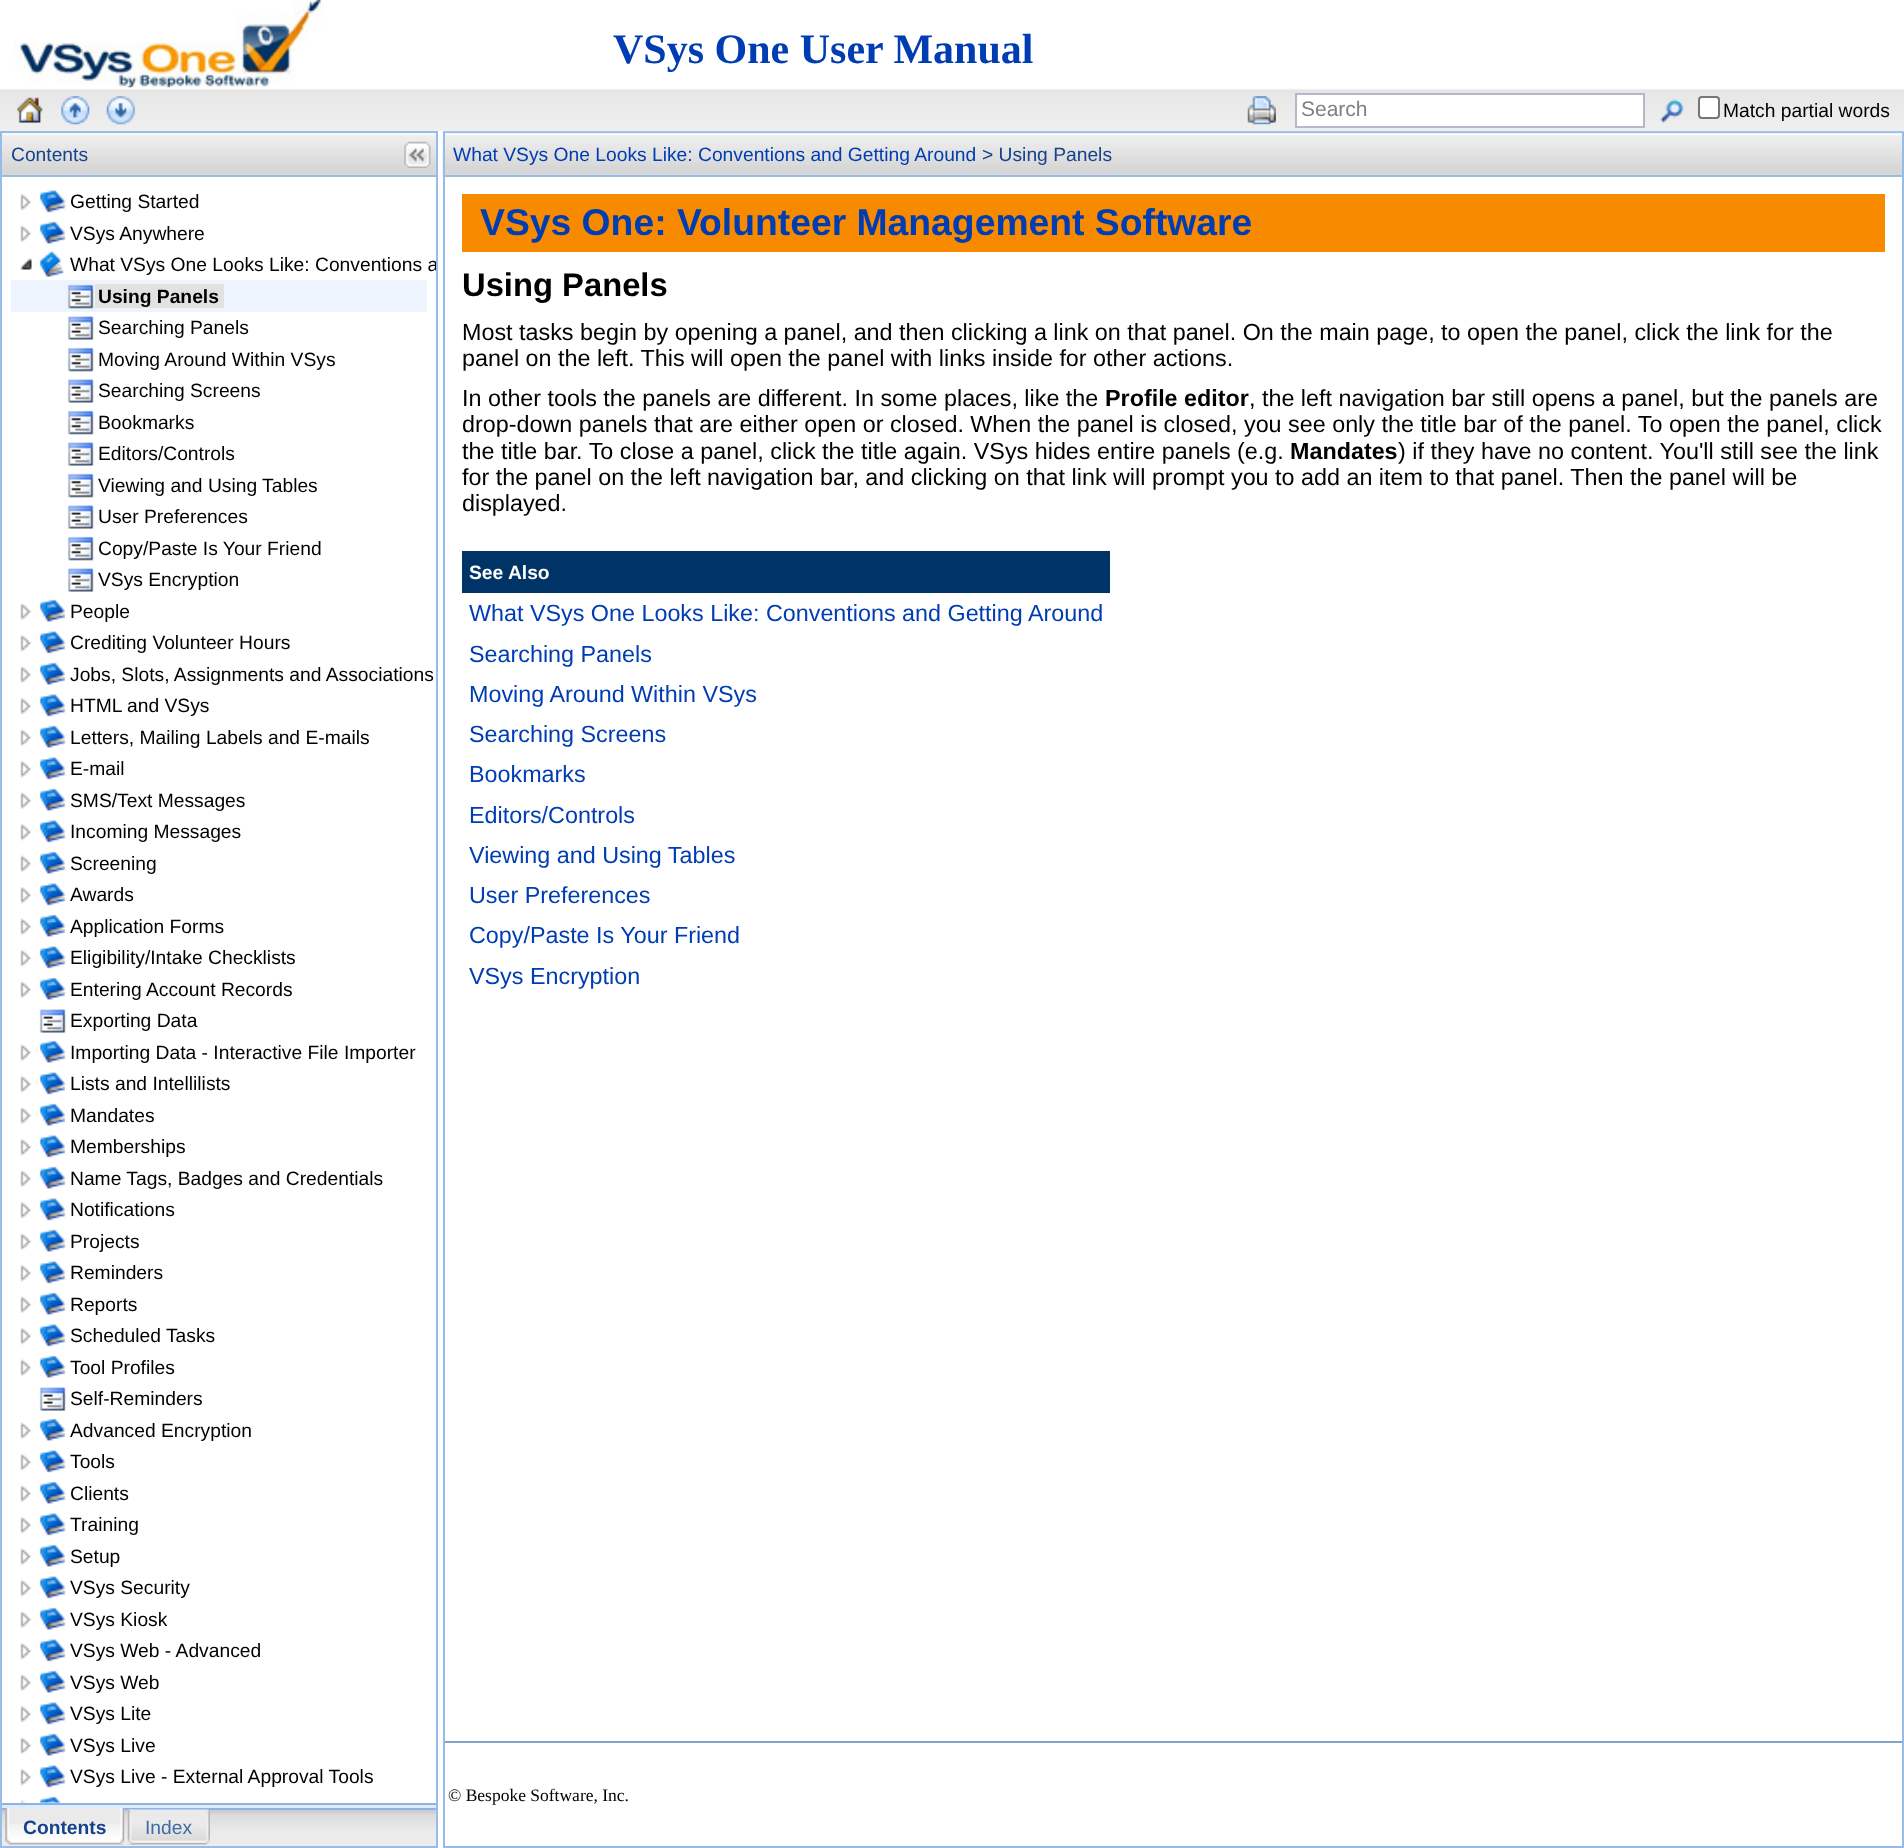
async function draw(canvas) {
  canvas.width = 1904
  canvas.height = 1848
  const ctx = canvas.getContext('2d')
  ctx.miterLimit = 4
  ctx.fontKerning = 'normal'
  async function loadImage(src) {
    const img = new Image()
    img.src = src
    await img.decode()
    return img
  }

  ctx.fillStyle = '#fff'
  ctx.fillRect(0, 0, 1904, 1848)
  ctx.drawImage(await loadImage('image0.png'), 0, 0, 1904, 88)
  ctx.font = 'bold 42px Liberation Serif'
  ctx.fillStyle = '#003db2'
  ctx.fillText('VSys One User Manual', 613, 63)
  ctx.drawImage(await loadImage('image28.png'), 442, 131, 1460, 46)
  ctx.strokeStyle = '#99bbe8'
  ctx.lineWidth = 2
  ctx.strokeRect(444, 132, 1459, 44)
  ctx.drawImage(await loadImage('image1.png'), 0, 87, 1904, 45)
  ctx.drawImage(await loadImage('image2.png'), 17, 97, 26, 26)
  ctx.drawImage(await loadImage('image3.png'), 61, 96, 29, 29)
  ctx.drawImage(await loadImage('image4.png'), 106, 96, 29, 29)
  ctx.drawImage(await loadImage('image5.png'), 1247, 96, 29, 29)
  ctx.fillStyle = '#fff'
  ctx.beginPath()
  ctx.rect(1296, 94, 348, 33)
  ctx.fill()
  ctx.strokeStyle = '#b5b8c8'
  ctx.stroke()
  ctx.font = '21px Liberation Sans'
  ctx.fillStyle = '#808080'
  ctx.fillText('Search', 1301, 116)
  ctx.drawImage(await loadImage('image6.png'), 1660, 99, 24, 24)
  ctx.fillStyle = '#fff'
  ctx.beginPath()
  ctx.roundRect(1699, 97, 20, 21, 3)
  ctx.fill()
  ctx.strokeStyle = '#767676'
  ctx.stroke()
  ctx.font = '19.25px Liberation Sans'
  ctx.fillStyle = '#000'
  ctx.fillText('Match partial words', 1723, 117)
  ctx.drawImage(await loadImage('image7.png'), 2, 133, 434, 42)
  ctx.strokeStyle = '#99bbe8'
  ctx.strokeRect(1, 132, 436, 44)
  ctx.fillStyle = '#15428b'
  ctx.fillText('Contents', 11, 161)
  ctx.drawImage(await loadImage('image8.png'), 404, 141, 27, 27)
  ctx.fillStyle = '#99bbe8'
  ctx.fillRect(436, 177, 2, 1671)
  ctx.fillRect(0, 1846, 438, 2)
  ctx.fillRect(0, 177, 2, 1671)
  ctx.drawImage(await loadImage('image9.png'), 20, 194, 12, 17)
  ctx.drawImage(await loadImage('image10.png'), 39, 190, 27, 23)
  ctx.fillStyle = '#000'
  ctx.fillText('Getting Started', 70, 208)
  ctx.drawImage(await loadImage('image11.png'), 20, 225, 12, 17)
  ctx.drawImage(await loadImage('image12.png'), 39, 221, 27, 23)
  ctx.fillText('VSys Anywhere', 70, 240)
  ctx.drawImage(await loadImage('image13.png'), 20, 258, 12, 12)
  ctx.drawImage(await loadImage('image14.png'), 39, 251, 25, 26)
  ctx.save()
  ctx.beginPath()
  ctx.rect(2, 177, 434, 1626)
  ctx.clip()
  ctx.fillText('What VSys One Looks Like: Conventions a', 70, 271)
  ctx.restore()
  ctx.fillStyle = '#edf4fe'
  ctx.fillRect(11, 280, 416, 32)
  ctx.drawImage(await loadImage('image15.png'), 67, 284, 27, 25)
  ctx.fillStyle = '#e2e2e2'
  ctx.fillRect(95, 284, 129, 24)
  ctx.font = 'bold 19.25px Liberation Sans'
  ctx.fillStyle = '#000'
  ctx.fillText('Using Panels', 98, 303)
  ctx.drawImage(await loadImage('image16.png'), 67, 316, 27, 24)
  ctx.font = '19.25px Liberation Sans'
  ctx.fillText('Searching Panels', 98, 334)
  ctx.drawImage(await loadImage('image17.png'), 67, 347, 27, 25)
  ctx.fillText('Moving Around Within VSys', 98, 366)
  ctx.drawImage(await loadImage('image16.png'), 67, 379, 27, 24)
  ctx.fillText('Searching Screens', 98, 397)
  ctx.drawImage(await loadImage('image17.png'), 67, 410, 27, 25)
  ctx.fillText('Bookmarks', 98, 429)
  ctx.drawImage(await loadImage('image16.png'), 67, 442, 27, 24)
  ctx.fillText('Editors/Controls', 98, 460)
  ctx.drawImage(await loadImage('image17.png'), 67, 473, 27, 25)
  ctx.fillText('Viewing and Using Tables', 98, 492)
  ctx.drawImage(await loadImage('image16.png'), 67, 505, 27, 24)
  ctx.fillText('User Preferences', 98, 523)
  ctx.drawImage(await loadImage('image17.png'), 67, 536, 27, 25)
  ctx.fillText('Copy/Paste Is Your Friend', 98, 555)
  ctx.drawImage(await loadImage('image16.png'), 67, 568, 27, 24)
  ctx.fillText('VSys Encryption', 98, 586)
  ctx.drawImage(await loadImage('image18.png'), 20, 603, 12, 17)
  ctx.drawImage(await loadImage('image19.png'), 39, 599, 27, 23)
  ctx.fillText('People', 70, 618)
  ctx.drawImage(await loadImage('image9.png'), 20, 635, 12, 17)
  ctx.drawImage(await loadImage('image10.png'), 39, 631, 27, 23)
  ctx.fillText('Crediting Volunteer Hours', 70, 649)
  ctx.drawImage(await loadImage('image18.png'), 20, 666, 12, 17)
  ctx.drawImage(await loadImage('image19.png'), 39, 662, 27, 23)
  ctx.fillText('Jobs, Slots, Assignments and Associations', 70, 681)
  ctx.drawImage(await loadImage('image9.png'), 20, 698, 12, 17)
  ctx.drawImage(await loadImage('image10.png'), 39, 694, 27, 23)
  ctx.fillText('HTML and VSys', 70, 712)
  ctx.drawImage(await loadImage('image18.png'), 20, 729, 12, 17)
  ctx.drawImage(await loadImage('image19.png'), 39, 725, 27, 23)
  ctx.fillText('Letters, Mailing Labels and E-mails', 70, 744)
  ctx.drawImage(await loadImage('image9.png'), 20, 761, 12, 17)
  ctx.drawImage(await loadImage('image10.png'), 39, 757, 27, 23)
  ctx.fillText('E-mail', 70, 775)
  ctx.drawImage(await loadImage('image18.png'), 20, 792, 12, 17)
  ctx.drawImage(await loadImage('image19.png'), 39, 788, 27, 23)
  ctx.fillText('SMS/Text Messages', 70, 807)
  ctx.drawImage(await loadImage('image9.png'), 20, 824, 12, 17)
  ctx.drawImage(await loadImage('image10.png'), 39, 820, 27, 23)
  ctx.fillText('Incoming Messages', 70, 838)
  ctx.drawImage(await loadImage('image18.png'), 20, 855, 12, 17)
  ctx.drawImage(await loadImage('image19.png'), 39, 851, 27, 23)
  ctx.fillText('Screening', 70, 870)
  ctx.drawImage(await loadImage('image9.png'), 20, 887, 12, 17)
  ctx.drawImage(await loadImage('image10.png'), 39, 883, 27, 23)
  ctx.fillText('Awards', 70, 901)
  ctx.drawImage(await loadImage('image18.png'), 20, 918, 12, 17)
  ctx.drawImage(await loadImage('image19.png'), 39, 914, 27, 23)
  ctx.fillText('Application Forms', 70, 933)
  ctx.drawImage(await loadImage('image9.png'), 20, 950, 12, 17)
  ctx.drawImage(await loadImage('image10.png'), 39, 946, 27, 23)
  ctx.fillText('Eligibility/Intake Checklists', 70, 964)
  ctx.drawImage(await loadImage('image18.png'), 20, 981, 12, 17)
  ctx.drawImage(await loadImage('image19.png'), 39, 977, 27, 23)
  ctx.fillText('Entering Account Records', 70, 996)
  ctx.drawImage(await loadImage('image20.png'), 39, 1009, 27, 24)
  ctx.fillText('Exporting Data', 70, 1027)
  ctx.drawImage(await loadImage('image18.png'), 20, 1044, 12, 17)
  ctx.drawImage(await loadImage('image19.png'), 39, 1040, 27, 23)
  ctx.fillText('Importing Data - Interactive File Importer', 70, 1059)
  ctx.drawImage(await loadImage('image9.png'), 20, 1076, 12, 17)
  ctx.drawImage(await loadImage('image10.png'), 39, 1072, 27, 23)
  ctx.fillText('Lists and Intellilists', 70, 1090)
  ctx.drawImage(await loadImage('image18.png'), 20, 1107, 12, 17)
  ctx.drawImage(await loadImage('image19.png'), 39, 1103, 27, 23)
  ctx.fillText('Mandates', 70, 1122)
  ctx.drawImage(await loadImage('image9.png'), 20, 1139, 12, 17)
  ctx.drawImage(await loadImage('image10.png'), 39, 1135, 27, 23)
  ctx.fillText('Memberships', 70, 1153)
  ctx.drawImage(await loadImage('image18.png'), 20, 1170, 12, 17)
  ctx.drawImage(await loadImage('image19.png'), 39, 1166, 27, 23)
  ctx.fillText('Name Tags, Badges and Credentials', 70, 1185)
  ctx.drawImage(await loadImage('image9.png'), 20, 1202, 12, 17)
  ctx.drawImage(await loadImage('image10.png'), 39, 1198, 27, 23)
  ctx.fillText('Notifications', 70, 1216)
  ctx.drawImage(await loadImage('image18.png'), 20, 1233, 12, 17)
  ctx.drawImage(await loadImage('image19.png'), 39, 1229, 27, 23)
  ctx.fillText('Projects', 70, 1248)
  ctx.drawImage(await loadImage('image9.png'), 20, 1265, 12, 17)
  ctx.drawImage(await loadImage('image10.png'), 39, 1261, 27, 23)
  ctx.fillText('Reminders', 70, 1279)
  ctx.drawImage(await loadImage('image18.png'), 20, 1296, 12, 17)
  ctx.drawImage(await loadImage('image19.png'), 39, 1292, 27, 23)
  ctx.fillText('Reports', 70, 1311)
  ctx.drawImage(await loadImage('image9.png'), 20, 1328, 12, 17)
  ctx.drawImage(await loadImage('image10.png'), 39, 1324, 27, 23)
  ctx.fillText('Scheduled Tasks', 70, 1342)
  ctx.drawImage(await loadImage('image18.png'), 20, 1359, 12, 17)
  ctx.drawImage(await loadImage('image19.png'), 39, 1355, 27, 23)
  ctx.fillText('Tool Profiles', 70, 1374)
  ctx.drawImage(await loadImage('image20.png'), 39, 1387, 27, 24)
  ctx.fillText('Self-Reminders', 70, 1405)
  ctx.drawImage(await loadImage('image18.png'), 20, 1422, 12, 17)
  ctx.drawImage(await loadImage('image19.png'), 39, 1418, 27, 23)
  ctx.fillText('Advanced Encryption', 70, 1437)
  ctx.drawImage(await loadImage('image9.png'), 20, 1454, 12, 17)
  ctx.drawImage(await loadImage('image10.png'), 39, 1450, 27, 23)
  ctx.fillText('Tools', 70, 1468)
  ctx.drawImage(await loadImage('image18.png'), 20, 1485, 12, 17)
  ctx.drawImage(await loadImage('image19.png'), 39, 1481, 27, 23)
  ctx.fillText('Clients', 70, 1500)
  ctx.drawImage(await loadImage('image9.png'), 20, 1517, 12, 17)
  ctx.drawImage(await loadImage('image10.png'), 39, 1513, 27, 23)
  ctx.fillText('Training', 70, 1531)
  ctx.drawImage(await loadImage('image18.png'), 20, 1548, 12, 17)
  ctx.drawImage(await loadImage('image19.png'), 39, 1544, 27, 23)
  ctx.fillText('Setup', 70, 1563)
  ctx.drawImage(await loadImage('image9.png'), 20, 1580, 12, 17)
  ctx.drawImage(await loadImage('image10.png'), 39, 1576, 27, 23)
  ctx.fillText('VSys Security', 70, 1594)
  ctx.drawImage(await loadImage('image18.png'), 20, 1611, 12, 17)
  ctx.drawImage(await loadImage('image19.png'), 39, 1607, 27, 23)
  ctx.fillText('VSys Kiosk', 70, 1626)
  ctx.drawImage(await loadImage('image9.png'), 20, 1643, 12, 17)
  ctx.drawImage(await loadImage('image10.png'), 39, 1639, 27, 23)
  ctx.fillText('VSys Web - Advanced', 70, 1657)
  ctx.drawImage(await loadImage('image18.png'), 20, 1674, 12, 17)
  ctx.drawImage(await loadImage('image19.png'), 39, 1670, 27, 23)
  ctx.fillText('VSys Web', 70, 1689)
  ctx.drawImage(await loadImage('image9.png'), 20, 1706, 12, 17)
  ctx.drawImage(await loadImage('image10.png'), 39, 1702, 27, 23)
  ctx.fillText('VSys Lite', 70, 1720)
  ctx.drawImage(await loadImage('image18.png'), 20, 1737, 12, 17)
  ctx.drawImage(await loadImage('image19.png'), 39, 1733, 27, 23)
  ctx.fillText('VSys Live', 70, 1752)
  ctx.drawImage(await loadImage('image9.png'), 20, 1769, 12, 17)
  ctx.drawImage(await loadImage('image10.png'), 39, 1765, 27, 23)
  ctx.fillText('VSys Live - External Approval Tools', 70, 1783)
  ctx.drawImage(await loadImage('image21.png'), 20, 1800, 6, 3)
  ctx.drawImage(await loadImage('image22.png'), 39, 1796, 23, 7)
  ctx.fillStyle = '#deecfd'
  ctx.fillRect(2, 1805, 434, 41)
  ctx.fillStyle = '#8db2e3'
  ctx.fillRect(2, 1803, 434, 2)
  ctx.drawImage(await loadImage('image23.png'), 1, 1809, 435, 38)
  ctx.fillRect(2, 1808, 434, 2)
  ctx.drawImage(await loadImage('image24.png'), 5, 1808, 120, 37)
  ctx.drawImage(await loadImage('image25.png'), 119, 1807, 6, 38)
  ctx.font = 'bold 19.25px Liberation Sans'
  ctx.fillStyle = '#15428b'
  ctx.fillText('Contents', 23, 1834)
  ctx.drawImage(await loadImage('image26.png'), 127, 1809, 83, 36)
  ctx.drawImage(await loadImage('image27.png'), 127, 1809, 6, 36)
  ctx.font = '19.25px Liberation Sans'
  ctx.fillStyle = '#416aa3'
  ctx.fillText('Index', 145, 1834)
  ctx.fillStyle = '#003db2'
  ctx.fillText('What VSys One Looks Like: Conventions and Getting Around', 453, 161)
  ctx.fillStyle = '#15428b'
  ctx.fillText('> Using Panels', 982, 161)
  ctx.fillStyle = '#99bbe8'
  ctx.fillRect(1902, 177, 2, 1671)
  ctx.fillRect(443, 1846, 1461, 2)
  ctx.fillRect(443, 177, 2, 1671)
  ctx.fillStyle = '#f88a00'
  ctx.fillRect(462, 194, 1423, 58)
  ctx.font = 'bold 37.3px Liberation Sans'
  ctx.fillStyle = '#003db2'
  ctx.fillText('VSys One: Volunteer Management Software', 480, 235)
  ctx.font = 'bold 32.75px Liberation Sans'
  ctx.fillStyle = '#000'
  ctx.fillText('Using Panels', 462, 296)
  ctx.font = '23.33px Liberation Sans'
  ctx.fillText('Most tasks begin by opening a panel, and then clicking a link on that panel. On the main page, to open the panel, click the link for the', 462, 340)
  ctx.fillText('panel on the left. This will open the panel with links inside for other actions.', 462, 366)
  ctx.fillText('In other tools the panels are different. In some places, like the', 462, 406)
  ctx.font = 'bold 23.33px Liberation Sans'
  ctx.fillText('Profile editor', 1105, 406)
  ctx.font = '23.33px Liberation Sans'
  ctx.fillText(', the left navigation bar still opens a panel, but the panels are', 1249, 406)
  ctx.fillText('drop-down panels that are either open or closed. When the panel is closed, you see only the title bar of the panel. To open the panel, click', 462, 432)
  ctx.fillText('the title bar. To close a panel, click the title again. VSys hides entire panels (e.g.', 462, 459)
  ctx.font = 'bold 23.33px Liberation Sans'
  ctx.fillText('Mandates', 1290, 459)
  ctx.font = '23.33px Liberation Sans'
  ctx.fillText(') if they have no content. You\'ll still see the link', 1398, 459)
  ctx.fillText('for the panel on the left navigation bar, and clicking on that link will prompt you to add an item to that panel. Then the panel will be', 462, 485)
  ctx.fillText('displayed.', 462, 511)
  ctx.fillStyle = '#003466'
  ctx.fillRect(462, 551, 648, 42)
  ctx.font = 'bold 19.25px Liberation Sans'
  ctx.fillStyle = '#fffffe'
  ctx.fillText('See Also', 469, 579)
  ctx.font = '23.33px Liberation Sans'
  ctx.fillStyle = '#003db2'
  ctx.fillText('What VSys One Looks Like: Conventions and Getting Around', 469, 621)
  ctx.fillText('Searching Panels', 469, 662)
  ctx.fillText('Moving Around Within VSys', 469, 702)
  ctx.fillText('Searching Screens', 469, 742)
  ctx.fillText('Bookmarks', 469, 782)
  ctx.fillText('Editors/Controls', 469, 823)
  ctx.fillText('Viewing and Using Tables', 469, 863)
  ctx.fillText('User Preferences', 469, 903)
  ctx.fillText('Copy/Paste Is Your Friend', 469, 943)
  ctx.fillText('VSys Encryption', 469, 984)
  ctx.fillStyle = '#82a2cb'
  ctx.fillRect(445, 1741, 1457, 2)
  ctx.font = '17.5px Liberation Serif'
  ctx.fillStyle = '#000'
  ctx.fillText('© Bespoke Software, Inc.', 448, 1801)
}

draw(document.querySelector('canvas'))
